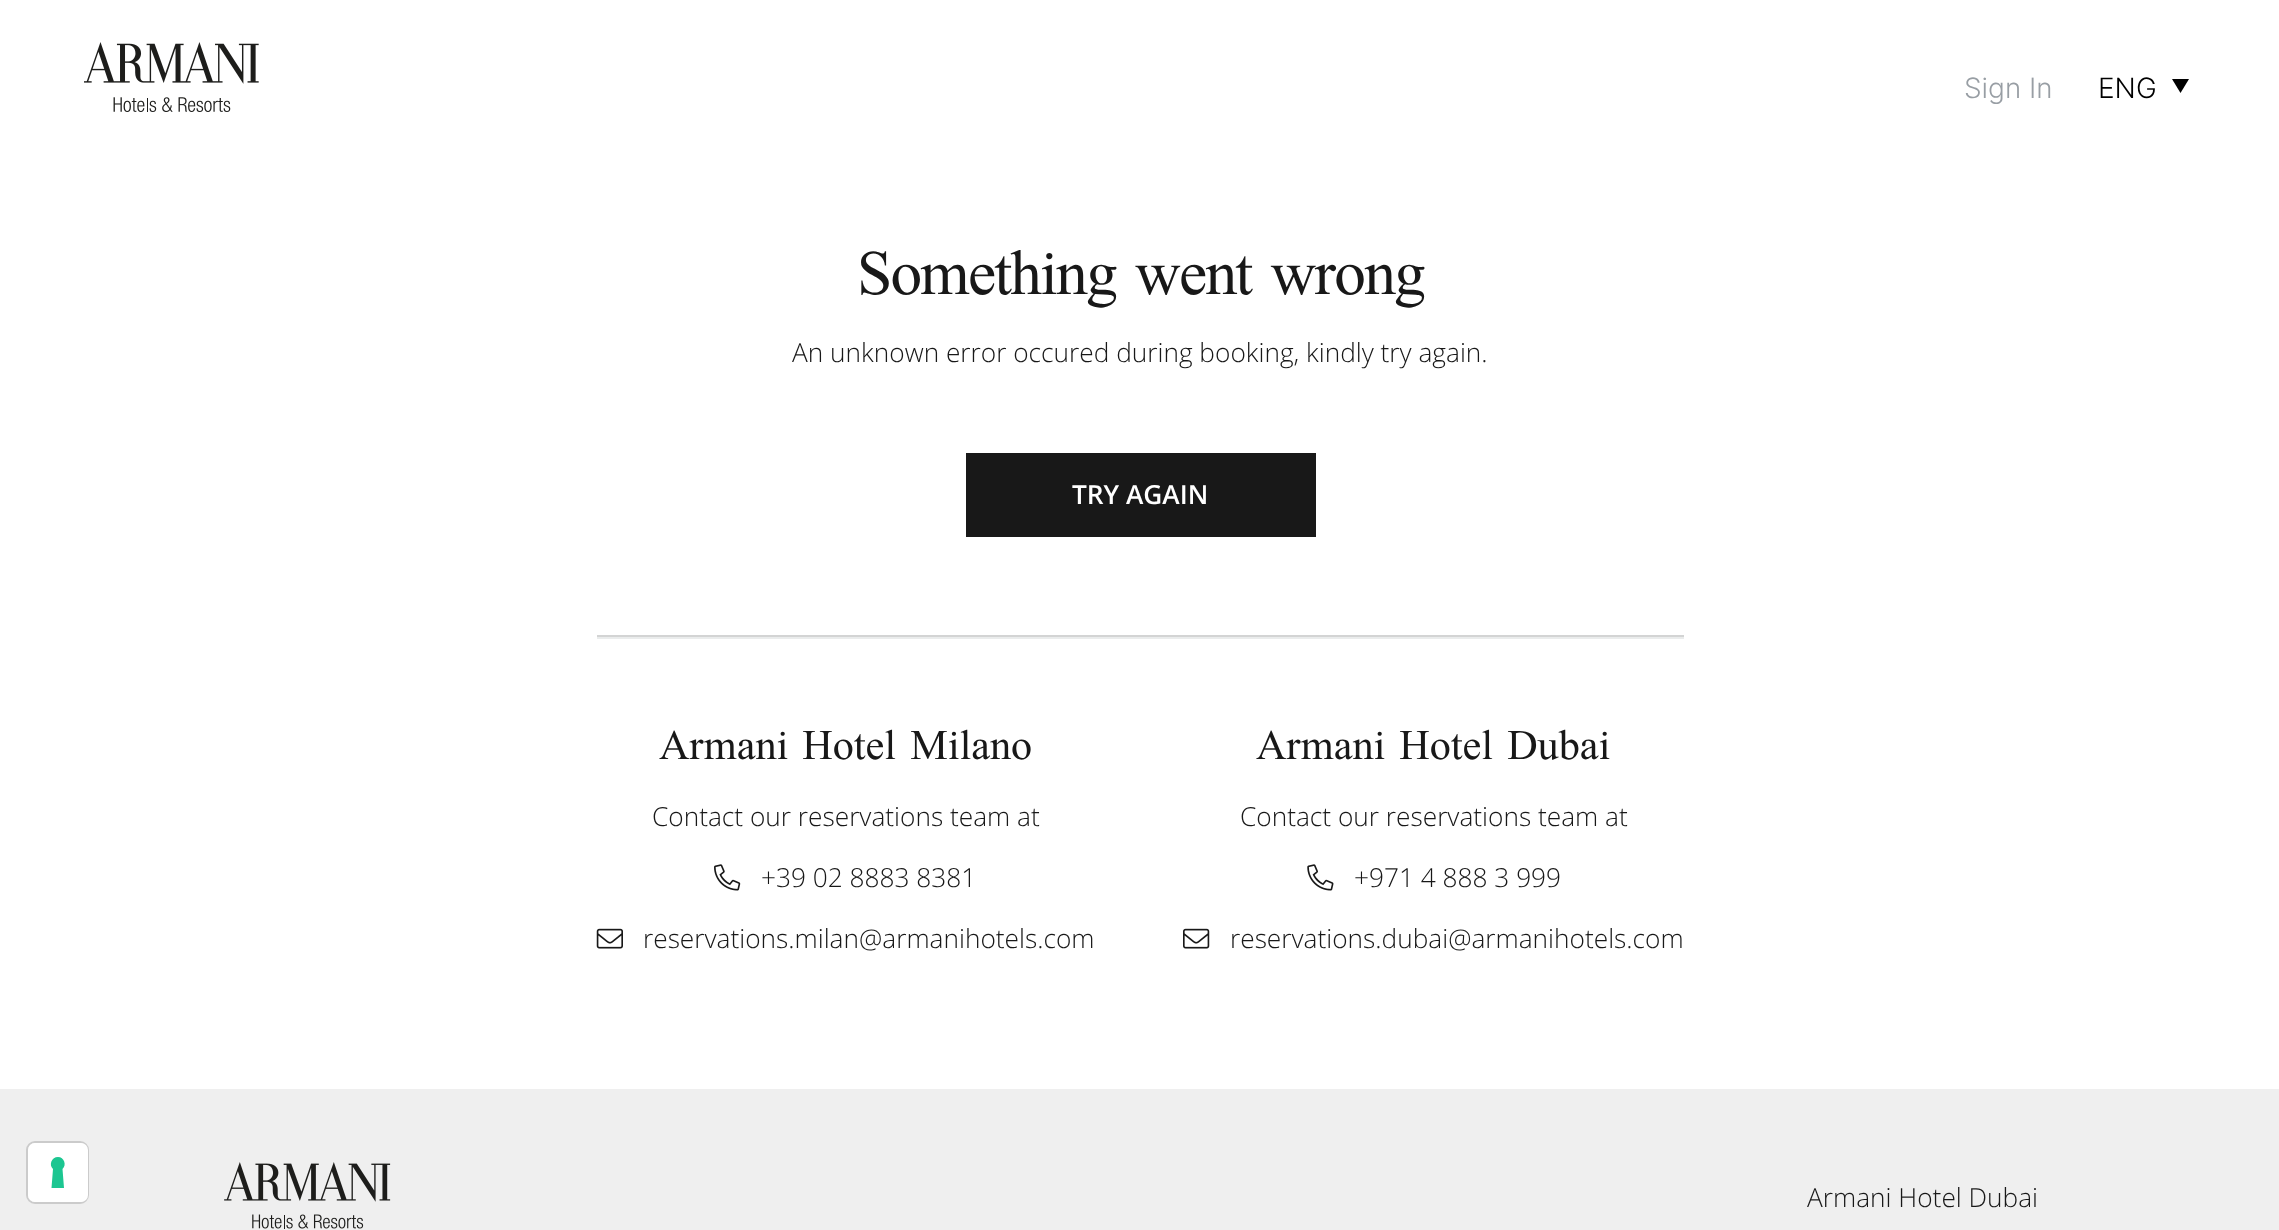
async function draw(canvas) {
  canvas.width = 2279
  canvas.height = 1230
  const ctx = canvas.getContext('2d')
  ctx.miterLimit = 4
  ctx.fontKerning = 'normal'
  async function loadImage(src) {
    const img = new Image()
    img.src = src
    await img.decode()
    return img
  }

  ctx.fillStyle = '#fff'
  ctx.fillRect(0, 0, 2279, 1230)
  ctx.fillStyle = '#efefef'
  ctx.fillRect(0, 1089, 2279, 141)
  ctx.beginPath()
  ctx.roundRect(27, 1142, 61, 61, 8)
  ctx.strokeStyle = '#cbcbcb'
  ctx.lineWidth = 2
  ctx.stroke()
  ctx.fillStyle = '#fff'
  ctx.beginPath()
  ctx.roundRect(28, 1143, 60, 59, 7)
  ctx.fill()
  ctx.fillStyle = '#1cc691'
  ctx.beginPath()
  ctx.moveTo(58, 1157)
  ctx.bezierCurveTo(64, 1157, 67, 1165, 62.5, 1169)
  ctx.lineTo(64, 1188)
  ctx.lineTo(51.5, 1188)
  ctx.lineTo(53, 1169)
  ctx.bezierCurveTo(48.5, 1165, 51.5, 1157, 58, 1157)
  ctx.closePath()
  ctx.fill('evenodd')
  ctx.drawImage(await loadImage('image0.png'), 84, 42, 175, 70)
  ctx.font = '300 28px Inter'
  ctx.fillStyle = '#989ea4'
  ctx.fillText('Sign In', 1964, 98)
  ctx.fillStyle = '#000'
  ctx.fillText('ENG', 2098, 98)
  ctx.beginPath()
  ctx.moveTo(2172, 79)
  ctx.lineTo(2189, 79)
  ctx.lineTo(2180.5, 93)
  ctx.closePath()
  ctx.fill()
  ctx.letterSpacing = '-1.75px'
  ctx.font = '84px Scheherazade'
  ctx.fillStyle = '#181818'
  ctx.fillText('Something went wrong', 857, 294)
  ctx.letterSpacing = '0px'
  ctx.font = '300 26.25px Open Sans'
  ctx.fillText('An unknown error occured during booking, kindly try again.', 792, 362)
  ctx.fillRect(966, 453, 350, 84)
  ctx.font = '600 26.25px Open Sans'
  ctx.fillStyle = '#fff'
  ctx.fillText('TRY AGAIN', 1072, 504)
  ctx.fillStyle = '#eaecec'
  ctx.fillRect(597, 637, 1087, 2)
  ctx.fillStyle = '#d3d4d4'
  ctx.fillRect(597, 635, 1087, 2)
  ctx.font = '56px Scheherazade'
  ctx.fillStyle = '#181818'
  ctx.fillText('Armani Hotel Milano', 659, 759)
  ctx.font = '300 26.25px Open Sans'
  ctx.fillText('Contact our reservations team at', 652, 826)
  ctx.drawImage(await loadImage('image1.png'), 714, 864, 27, 27)
  ctx.fillText('+39 02 8883 8381', 761, 887)
  ctx.drawImage(await loadImage('image2.png'), 596, 928, 27, 21)
  ctx.fillText('reservations.milan@armanihotels.com', 643, 948)
  ctx.font = '56px Scheherazade'
  ctx.fillText('Armani Hotel Dubai', 1256, 759)
  ctx.font = '300 26.25px Open Sans'
  ctx.fillText('Contact our reservations team at', 1240, 826)
  ctx.drawImage(await loadImage('image3.png'), 1307, 864, 27, 27)
  ctx.fillText('+971 4 888 3 999', 1354, 887)
  ctx.drawImage(await loadImage('image4.png'), 1183, 928, 27, 21)
  ctx.fillText('reservations.dubai@armanihotels.com', 1230, 948)
  ctx.drawImage(await loadImage('image5.png'), 224, 1162, 167, 67)
  ctx.fillText('Armani Hotel Dubai', 1807, 1207)
}

draw(document.querySelector('canvas'))
